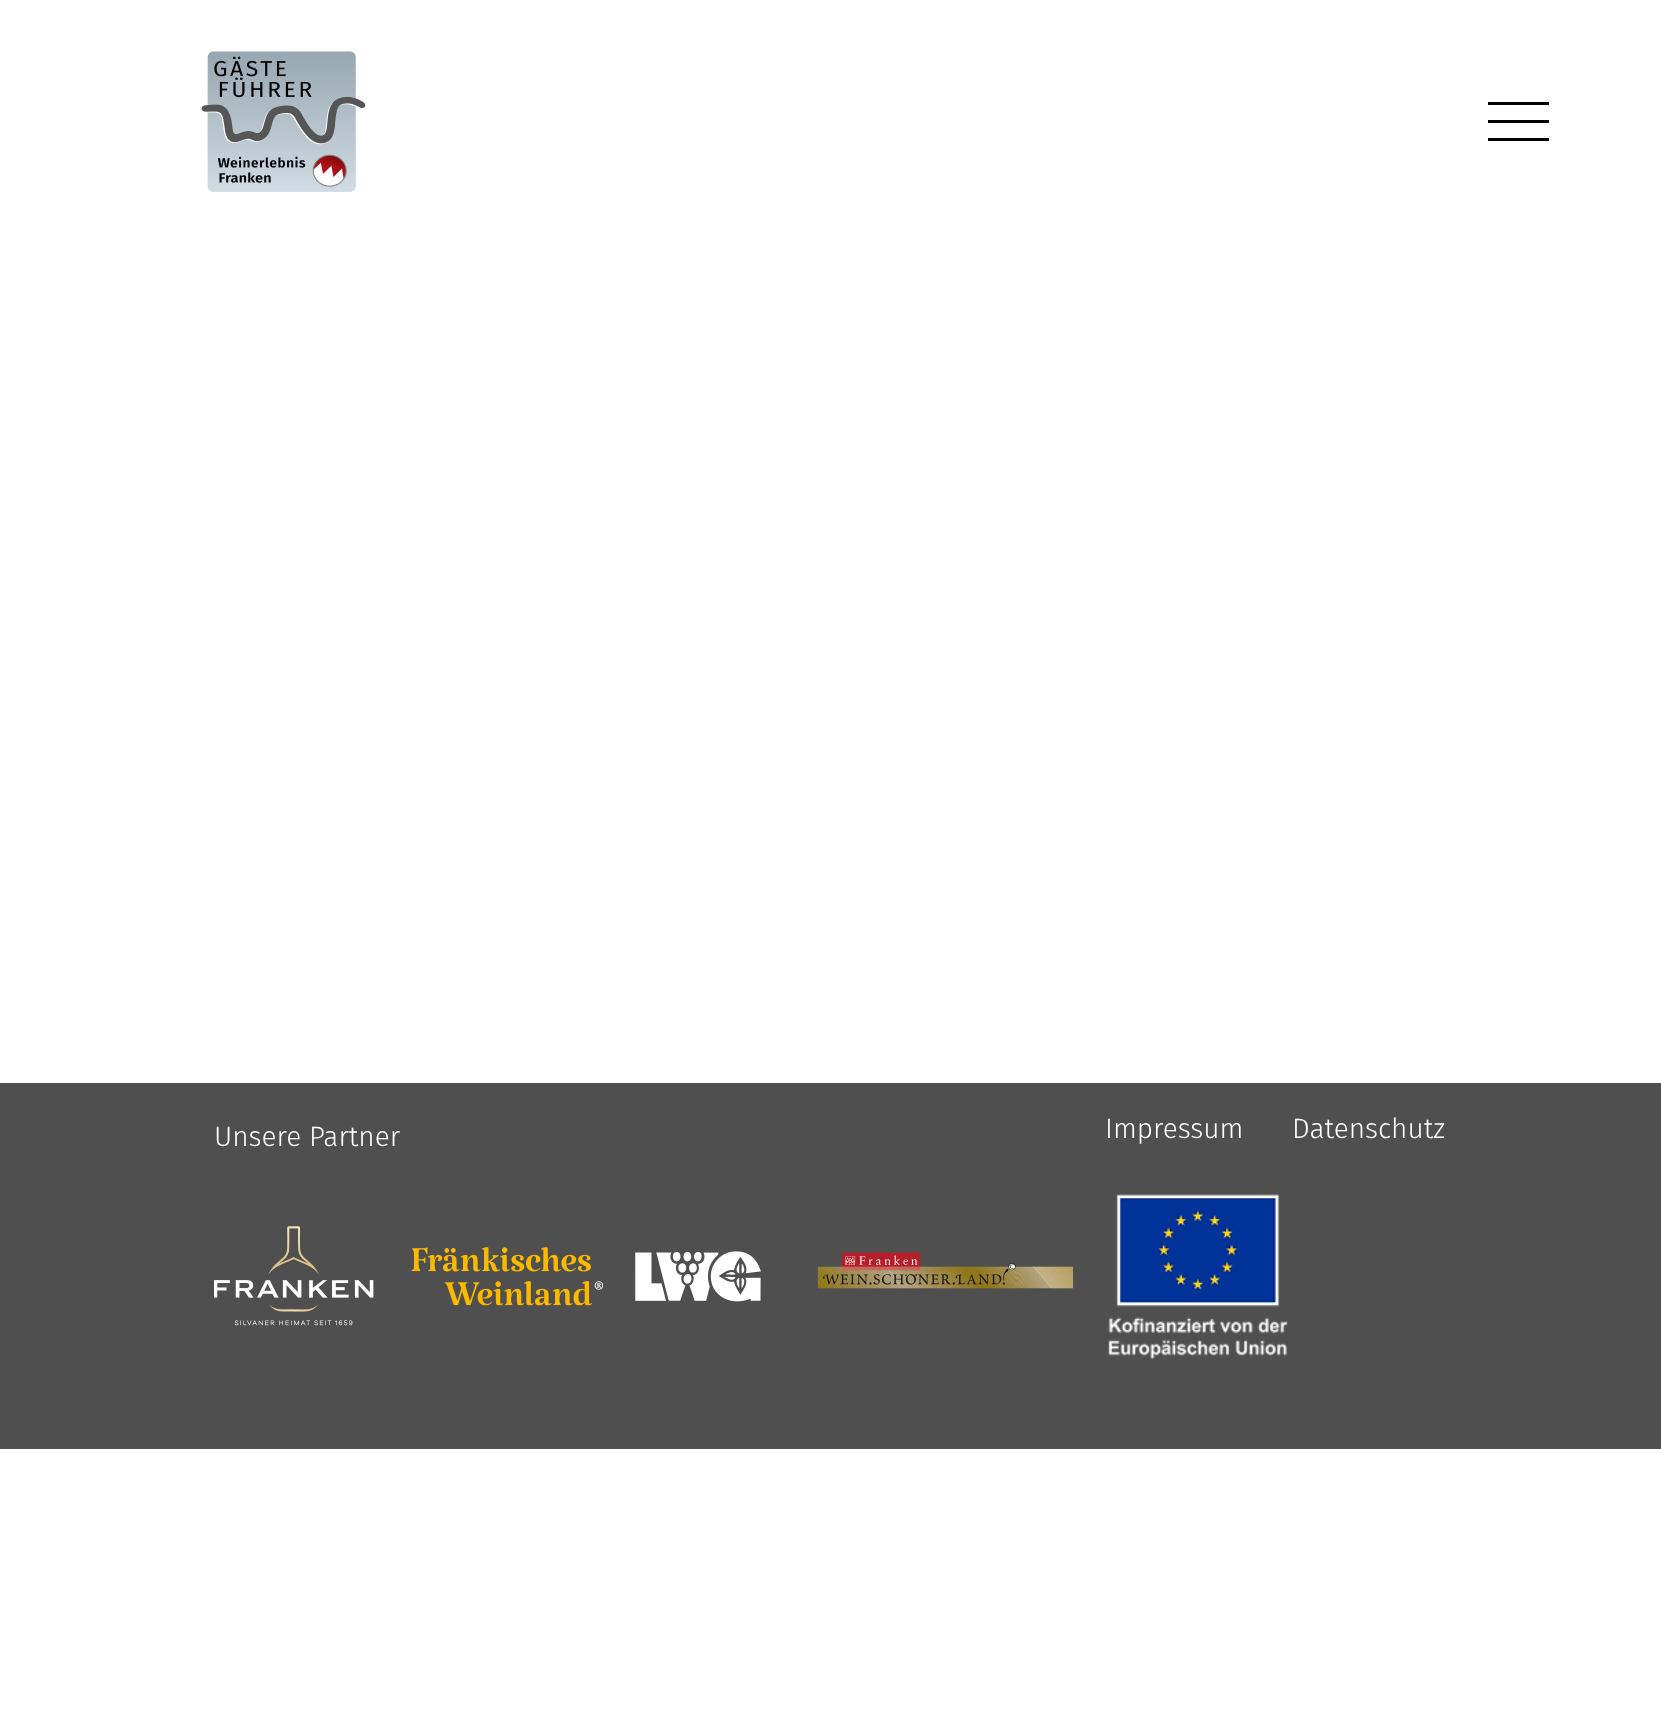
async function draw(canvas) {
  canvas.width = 1661
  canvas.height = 1727
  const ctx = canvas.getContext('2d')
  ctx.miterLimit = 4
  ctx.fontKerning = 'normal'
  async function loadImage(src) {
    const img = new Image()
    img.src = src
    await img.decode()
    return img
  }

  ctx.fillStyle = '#fff'
  ctx.fillRect(0, 0, 1661, 1727)
  ctx.drawImage(await loadImage('image0.png'), 201, 51, 165, 141)
  ctx.fillStyle = '#000'
  ctx.fillRect(1488, 102, 61, 3)
  ctx.fillRect(1488, 120, 61, 3)
  ctx.fillRect(1488, 138, 61, 3)
  ctx.fillStyle = '#4f4f4f'
  ctx.fillRect(0, 1083, 1661, 366)
  ctx.font = '300 28px Fira Sans'
  ctx.fillStyle = '#fff'
  ctx.fillText('Unsere Partner', 214, 1146)
  ctx.drawImage(await loadImage('image1.png'), 214, 1226, 160, 100)
  ctx.drawImage(await loadImage('image2.png'), 411, 1247, 193, 59)
  ctx.drawImage(await loadImage('image3.png'), 635, 1251, 126, 51)
  ctx.drawImage(await loadImage('image4.png'), 817, 1252, 257, 37)
  ctx.drawImage(await loadImage('image5.png'), 1108, 1194, 180, 166)
  ctx.fillText('Impressum', 1105, 1138)
  ctx.fillText('Datenschutz', 1292, 1138)
}

draw(document.querySelector('canvas'))
